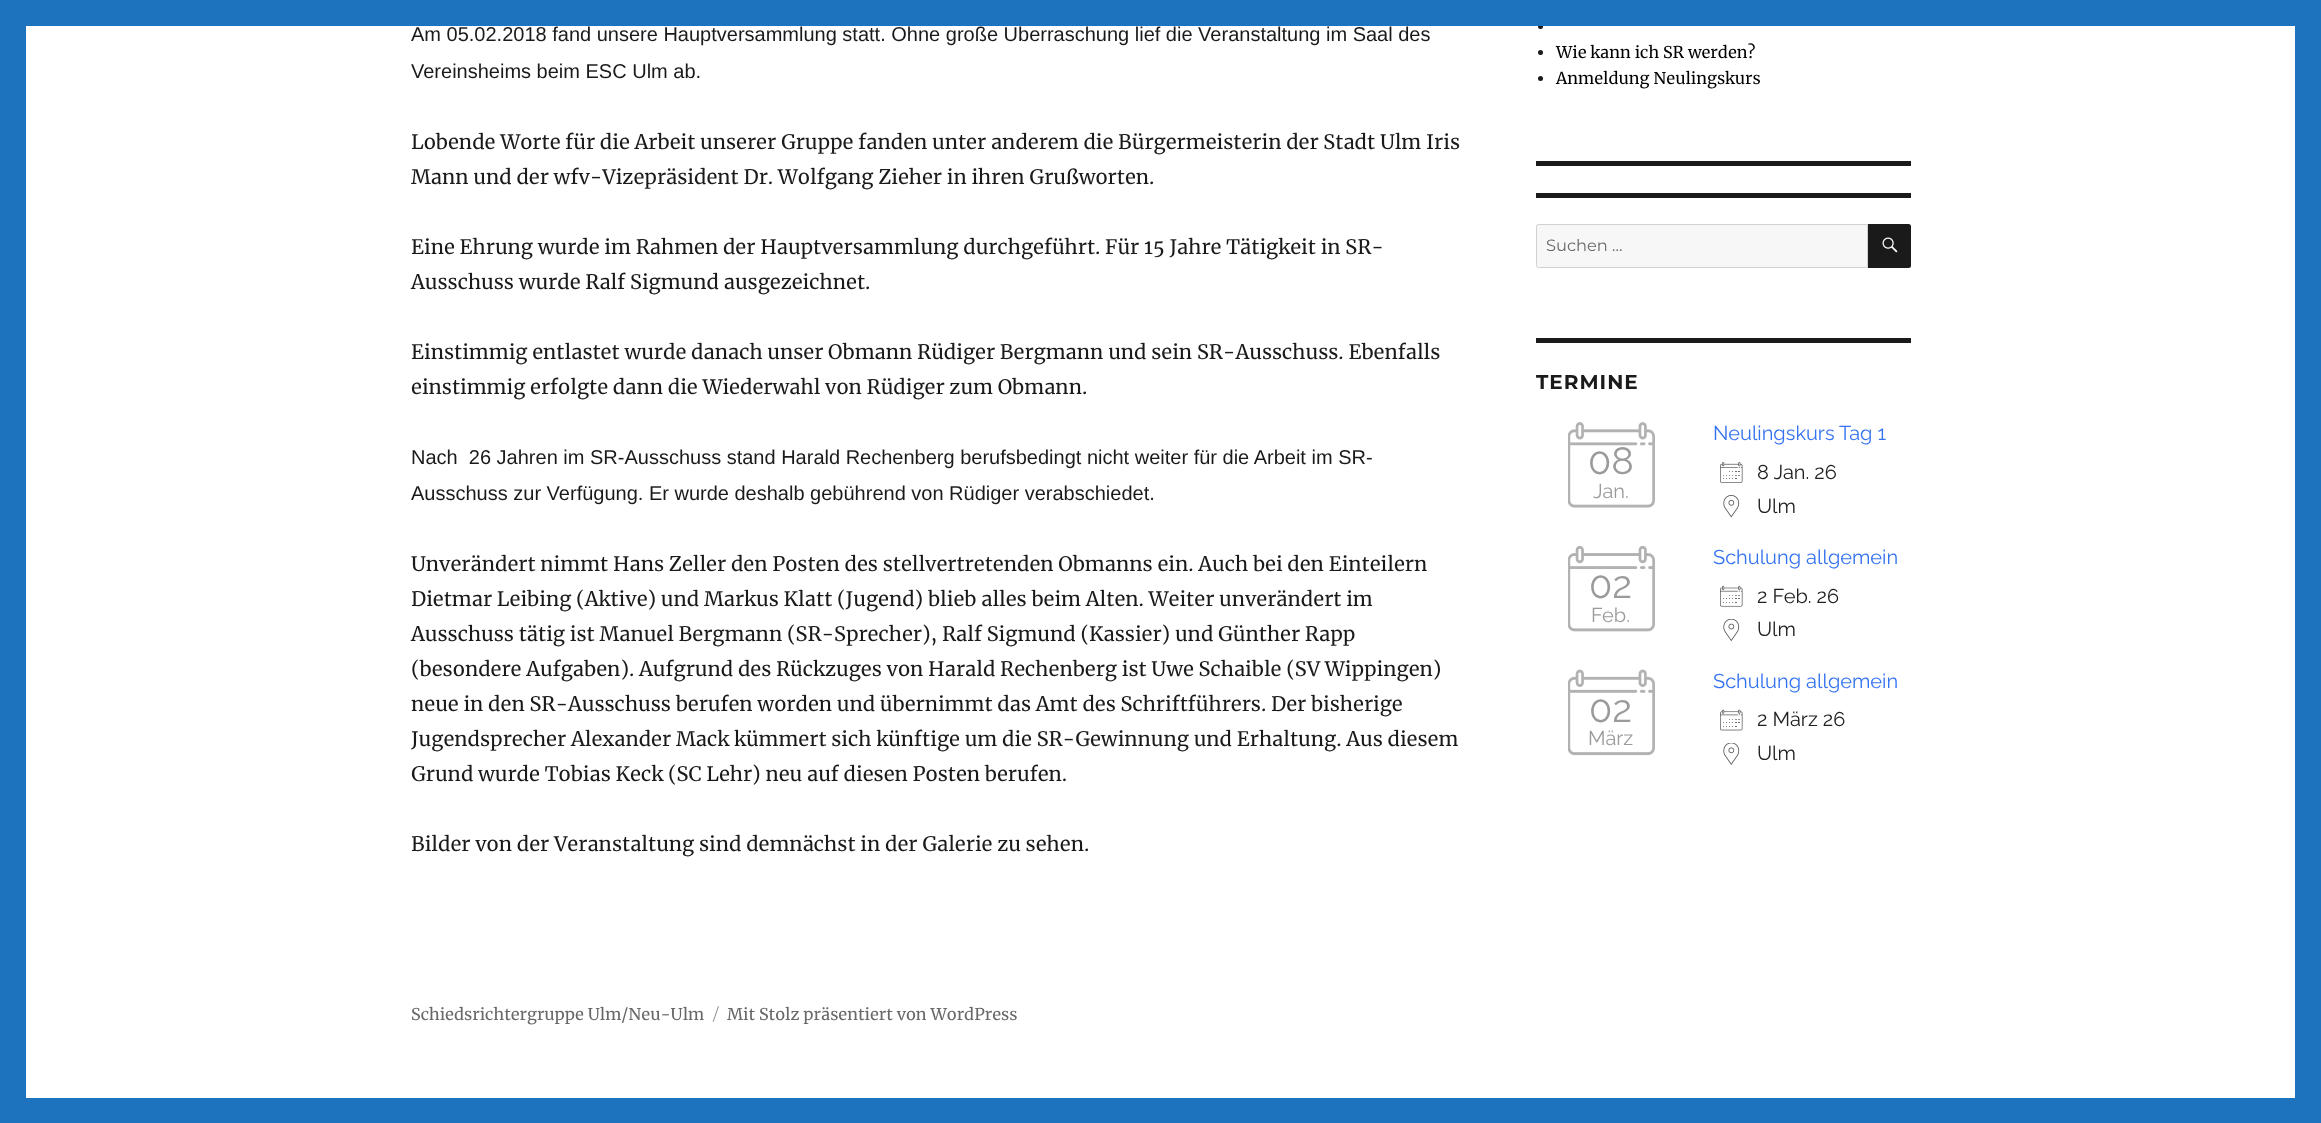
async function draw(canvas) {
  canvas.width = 2321
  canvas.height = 1123
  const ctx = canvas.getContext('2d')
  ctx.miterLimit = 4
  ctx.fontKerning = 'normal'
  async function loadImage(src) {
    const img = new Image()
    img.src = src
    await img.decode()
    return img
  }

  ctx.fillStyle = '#1e73be'
  ctx.fillRect(0, 0, 2321, 1123)
  ctx.fillStyle = '#fff'
  ctx.fillRect(26, 26, 2269, 1072)
  ctx.font = '20px Liberation Sans'
  ctx.fillStyle = '#1a1a1a'
  ctx.fillText('Am 05.02.2018 fand unsere Hauptversammlung statt. Ohne große Überraschung lief die Veranstaltung im Saal des', 411, 41)
  ctx.fillText('Vereinsheims beim ESC Ulm ab.', 411, 78)
  ctx.font = '20px Merriweather'
  ctx.fillText('Lobende Worte für die Arbeit unserer Gruppe fanden unter anderem die Bürgermeisterin der Stadt Ulm Iris', 411, 149)
  ctx.fillText('Mann und der wfv-Vizepräsident Dr. Wolfgang Zieher in ihren Grußworten.', 411, 184)
  ctx.fillText('Eine Ehrung wurde im Rahmen der Hauptversammlung durchgeführt. Für 15 Jahre Tätigkeit in SR-', 411, 254)
  ctx.fillText('Ausschuss wurde Ralf Sigmund ausgezeichnet.', 411, 289)
  ctx.fillText('Einstimmig entlastet wurde danach unser Obmann Rüdiger Bergmann und sein SR-Ausschuss. Ebenfalls', 411, 359)
  ctx.fillText('einstimmig erfolgte dann die Wiederwahl von Rüdiger zum Obmann.', 411, 394)
  ctx.font = '20px Liberation Sans'
  ctx.fillText('Nach  26 Jahren im SR-Ausschuss stand Harald Rechenberg berufsbedingt nicht weiter für die Arbeit im SR-', 411, 464)
  ctx.fillText('Ausschuss zur Verfügung. Er wurde deshalb gebührend von Rüdiger verabschiedet.', 411, 500)
  ctx.font = '20px Merriweather'
  ctx.fillText('Unverändert nimmt Hans Zeller den Posten des stellvertretenden Obmanns ein. Auch bei den Einteilern', 411, 571)
  ctx.fillText('Dietmar Leibing (Aktive) und Markus Klatt (Jugend) blieb alles beim Alten. Weiter unverändert im', 411, 606)
  ctx.fillText('Ausschuss tätig ist Manuel Bergmann (SR-Sprecher), Ralf Sigmund (Kassier) und Günther Rapp', 411, 641)
  ctx.fillText('(besondere Aufgaben). Aufgrund des Rückzuges von Harald Rechenberg ist Uwe Schaible (SV Wippingen)', 411, 676)
  ctx.fillText('neue in den SR-Ausschuss berufen worden und übernimmt das Amt des Schriftführers. Der bisherige', 411, 711)
  ctx.fillText('Jugendsprecher Alexander Mack kümmert sich künftige um die SR-Gewinnung und Erhaltung. Aus diesem', 411, 746)
  ctx.fillText('Grund wurde Tobias Keck (SC Lehr) neu auf diesen Posten berufen.', 411, 781)
  ctx.fillText('Bilder von der Veranstaltung sind demnächst in der Galerie zu sehen.', 411, 851)
  ctx.beginPath()
  ctx.arc(1540.5, 26.5, 2.5, 0, 2 * Math.PI)
  ctx.fill()
  ctx.beginPath()
  ctx.arc(1540.5, 52.5, 2.5, 0, 2 * Math.PI)
  ctx.fill()
  ctx.font = '16.25px Merriweather'
  ctx.fillStyle = '#000'
  ctx.fillText('Wie kann ich SR werden?', 1556, 58)
  ctx.fillStyle = '#1a1a1a'
  ctx.beginPath()
  ctx.arc(1540.5, 78.5, 2.5, 0, 2 * Math.PI)
  ctx.fill()
  ctx.fillStyle = '#000'
  ctx.fillText('Anmeldung Neulingskurs', 1556, 84)
  ctx.fillStyle = '#1a1a1a'
  ctx.fillRect(1536, 161, 375, 5)
  ctx.fillRect(1536, 193, 375, 5)
  ctx.fillStyle = '#f7f7f7'
  ctx.beginPath()
  ctx.roundRect(1536.5, 224.5, 331, 43, [2, 0, 0, 2])
  ctx.fill()
  ctx.strokeStyle = '#d1d1d1'
  ctx.stroke()
  ctx.font = '100 16.25px "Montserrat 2"'
  ctx.fillStyle = '#686868'
  ctx.fillText('Suchen …', 1546, 251)
  ctx.fillStyle = '#1a1a1a'
  ctx.beginPath()
  ctx.roundRect(1868, 224, 43, 44, [0, 2.5, 2.5, 0])
  ctx.fill()
  ctx.drawImage(await loadImage('image0.png'), 1882, 237, 16, 16)
  ctx.fillRect(1536, 338, 375, 5)
  ctx.letterSpacing = '1px'
  ctx.font = '100 20px Montserrat'
  ctx.fillText('TERMINE', 1536, 389)
  ctx.drawImage(await loadImage('image1.png'), 1568, 422, 87, 86)
  ctx.letterSpacing = '0px'
  ctx.font = '38px Raleway'
  ctx.fillStyle = '#9b9b9b'
  ctx.fillText('08', 1588, 474)
  ctx.font = '20px Raleway'
  ctx.fillText('Jan.', 1593, 498)
  ctx.fillStyle = '#3372f0'
  ctx.fillText('Neulingskurs Tag 1', 1713, 440)
  ctx.drawImage(await loadImage('image2.png'), 1720, 462, 23, 21)
  ctx.fillStyle = '#212121'
  ctx.fillText('8 Jan. 26', 1757, 479)
  ctx.drawImage(await loadImage('image3.png'), 1723, 495, 17, 23)
  ctx.fillText('Ulm', 1757, 513)
  ctx.drawImage(await loadImage('image4.png'), 1568, 545, 87, 87)
  ctx.font = '38px Raleway'
  ctx.fillStyle = '#9b9b9b'
  ctx.fillText('02', 1589, 598)
  ctx.font = '20px Raleway'
  ctx.fillText('Feb.', 1591, 622)
  ctx.fillStyle = '#3372f0'
  ctx.fillText('Schulung allgemein', 1713, 564)
  ctx.drawImage(await loadImage('image5.png'), 1720, 585, 23, 22)
  ctx.fillStyle = '#212121'
  ctx.fillText('2 Feb. 26', 1757, 603)
  ctx.drawImage(await loadImage('image6.png'), 1723, 619, 17, 22)
  ctx.fillText('Ulm', 1757, 636)
  ctx.drawImage(await loadImage('image7.png'), 1568, 669, 87, 87)
  ctx.font = '38px Raleway'
  ctx.fillStyle = '#9b9b9b'
  ctx.fillText('02', 1589, 722)
  ctx.font = '20px Raleway'
  ctx.fillText('März', 1588, 745)
  ctx.fillStyle = '#3372f0'
  ctx.fillText('Schulung allgemein', 1713, 688)
  ctx.drawImage(await loadImage('image8.png'), 1720, 709, 23, 22)
  ctx.fillStyle = '#212121'
  ctx.fillText('2 März 26', 1757, 726)
  ctx.drawImage(await loadImage('image9.png'), 1723, 743, 17, 22)
  ctx.fillText('Ulm', 1757, 760)
  ctx.font = '16.25px Merriweather'
  ctx.fillStyle = '#686868'
  ctx.fillText('Schiedsrichtergruppe Ulm/Neu-Ulm', 411, 1020)
  ctx.font = '100 16.25px "Montserrat 2"'
  ctx.fillStyle = '#959595'
  ctx.fillText('/', 713, 1020)
  ctx.font = '16.25px Merriweather'
  ctx.fillStyle = '#686868'
  ctx.fillText('Mit Stolz präsentiert von WordPress', 727, 1020)
  ctx.fillStyle = '#1e73be'
  ctx.fillRect(1007, 24, 536, 2)
}

draw(document.querySelector('canvas'))
